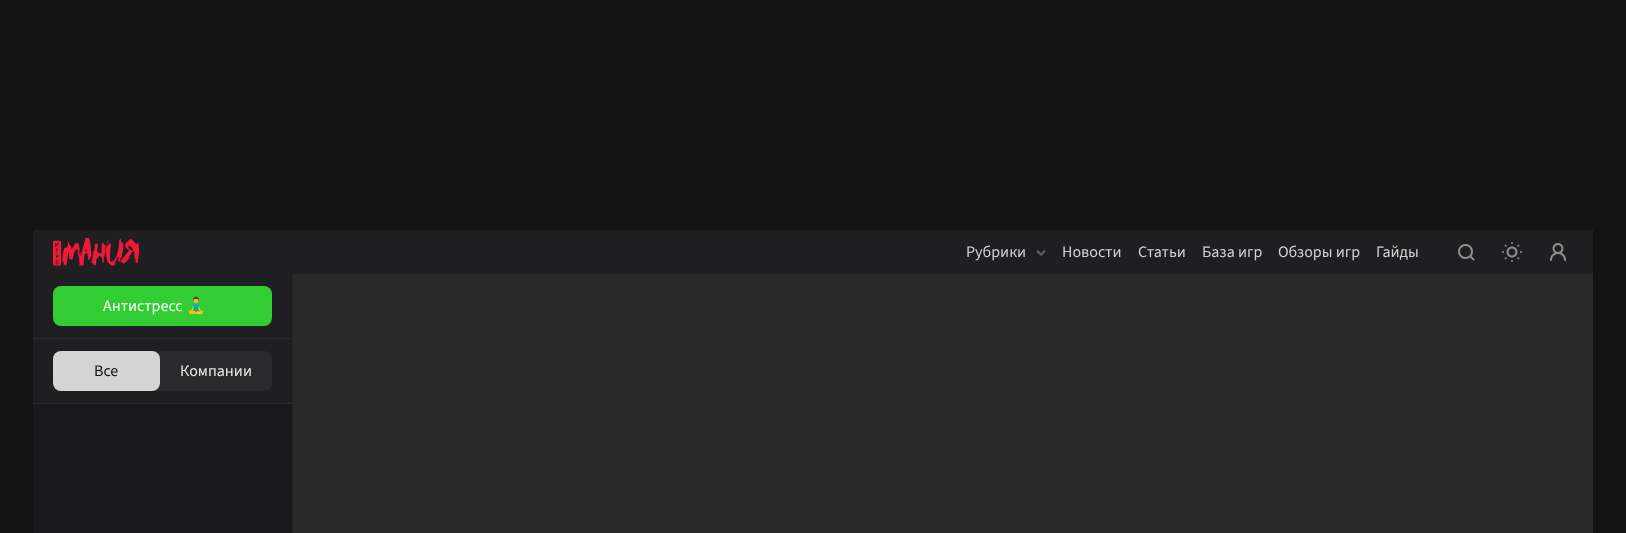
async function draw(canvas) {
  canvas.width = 1626
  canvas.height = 533
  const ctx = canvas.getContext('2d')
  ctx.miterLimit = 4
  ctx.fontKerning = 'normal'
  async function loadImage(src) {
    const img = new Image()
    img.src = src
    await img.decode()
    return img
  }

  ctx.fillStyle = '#131314'
  ctx.fillRect(0, 0, 1626, 533)
  ctx.fillStyle = '#1f1f21'
  ctx.fillRect(33, 230, 1560, 44)
  ctx.drawImage(await loadImage('image0.png'), 53, 238, 86, 28)
  ctx.font = '16px "Source Sans 3"'
  ctx.fillStyle = '#d2d2d3'
  ctx.fillText('Рубрики', 966, 257)
  ctx.drawImage(await loadImage('image1.png'), 1036, 250, 10, 6)
  ctx.fillText('Новости', 1062, 257)
  ctx.fillText('Статьи', 1138, 257)
  ctx.fillText('База игр', 1202, 257)
  ctx.fillText('Обзоры игр', 1278, 257)
  ctx.fillText('Гайды', 1376, 257)
  ctx.drawImage(await loadImage('image2.png'), 1458, 244, 17, 17)
  ctx.drawImage(await loadImage('image3.png'), 1502, 242, 20, 20)
  ctx.drawImage(await loadImage('image4.png'), 1550, 243, 16, 18)
  ctx.fillStyle = '#19191c'
  ctx.fillRect(33, 404, 259, 129)
  ctx.fillStyle = '#252527'
  ctx.fillRect(292, 274, 1, 259)
  ctx.fillStyle = '#1f1f21'
  ctx.fillRect(33, 274, 259, 64)
  ctx.fillStyle = '#2a2a2c'
  ctx.fillRect(33, 338, 259, 1)
  ctx.fillStyle = '#32cd32'
  ctx.beginPath()
  ctx.roundRect(53, 286, 219, 40, 8)
  ctx.fill()
  ctx.fillStyle = '#fff'
  ctx.fillText('Антистресс', 103, 311)
  ctx.font = '16px Noto Color Emoji'
  ctx.fillText('🧘‍♂️', 186, 311)
  ctx.fillStyle = '#1f1f21'
  ctx.fillRect(33, 339, 259, 64)
  ctx.fillStyle = '#2a2a2c'
  ctx.fillRect(33, 403, 259, 1)
  ctx.beginPath()
  ctx.roundRect(53, 351, 219, 40, 8)
  ctx.fill()
  ctx.fillStyle = '#ffffffcc'
  ctx.beginPath()
  ctx.roundRect(53, 351, 107, 40, 8)
  ctx.fill()
  ctx.font = '16px "Source Sans 3"'
  ctx.fillStyle = '#111112'
  ctx.fillText('Все', 94, 376)
  ctx.fillStyle = '#eaeaea'
  ctx.fillText('Компании', 180, 376)
  ctx.fillStyle = '#29292a'
  ctx.fillRect(293, 274, 1300, 259)
}

draw(document.querySelector('canvas'))
